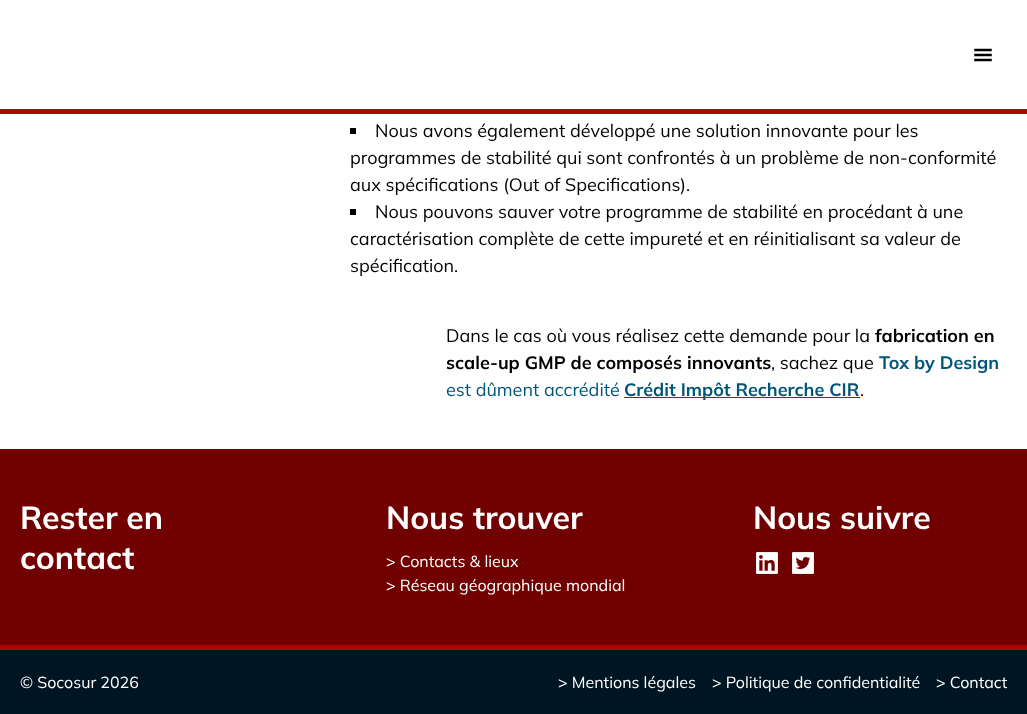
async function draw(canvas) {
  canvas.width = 1027
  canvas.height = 714
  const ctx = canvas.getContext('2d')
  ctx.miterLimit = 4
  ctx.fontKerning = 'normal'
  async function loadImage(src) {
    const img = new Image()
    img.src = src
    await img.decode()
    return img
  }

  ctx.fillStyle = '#fff'
  ctx.fillRect(0, 0, 1027, 714)
  ctx.drawImage(await loadImage('image0.png'), 974, 48, 18, 14)
  ctx.fillStyle = '#b00000'
  ctx.fillRect(0, 109, 1027, 5)
  ctx.fillStyle = '#000'
  ctx.fillRect(350, 128, 6, 6)
  ctx.font = '18px Mulish'
  ctx.fillText('Nous avons également développé une solution innovante pour les', 375, 137)
  ctx.fillText('programmes de stabilité qui sont confrontés à un problème de non-conformité', 350, 164)
  ctx.fillText('aux spécifications (Out of Specifications).', 350, 191)
  ctx.fillRect(350, 209, 6, 6)
  ctx.fillText('Nous pouvons sauver votre programme de stabilité en procédant à une', 375, 218)
  ctx.fillText('caractérisation complète de cette impureté et en réinitialisant sa valeur de', 350, 245)
  ctx.fillText('spécification.', 350, 272)
  ctx.fillText('Dans le cas où vous réalisez cette demande pour la', 446, 342)
  ctx.font = 'bold 18px Mulish'
  ctx.fillText('fabrication en', 875, 342)
  ctx.fillText('scale-up GMP de composés innovants', 446, 369)
  ctx.font = '18px Mulish'
  ctx.fillText(', sachez que', 771, 369)
  ctx.font = 'bold 18px Mulish'
  ctx.fillStyle = '#005678'
  ctx.fillText('Tox by Design', 879, 369)
  ctx.font = '18px Mulish'
  ctx.fillText('est dûment accrédité', 446, 396)
  ctx.fillStyle = '#0645ad'
  ctx.fillRect(624, 397, 236, 1)
  ctx.font = 'bold 18px Mulish'
  ctx.fillStyle = '#005678'
  ctx.fillText('Crédit Impôt Recherche CIR', 624, 396)
  ctx.font = '18px Mulish'
  ctx.fillStyle = '#000'
  ctx.fillText('.', 860, 396)
  ctx.fillStyle = '#710000'
  ctx.fillRect(0, 449, 1027, 196)
  ctx.font = 'bold 32px Mulish'
  ctx.fillStyle = '#fff'
  ctx.fillText('Rester en', 20, 529)
  ctx.fillText('contact', 20, 569)
  ctx.fillText('Nous trouver', 386, 529)
  ctx.font = '16px Mulish'
  ctx.fillText('> Contacts & lieux', 386, 567)
  ctx.fillText('> Réseau géographique mondial', 386, 591)
  ctx.font = 'bold 32px Mulish'
  ctx.fillText('Nous suivre', 753, 529)
  ctx.drawImage(await loadImage('image1.png'), 756, 552, 22, 22)
  ctx.drawImage(await loadImage('image2.png'), 792, 552, 22, 22)
  ctx.fillStyle = '#b00000'
  ctx.fillRect(0, 645, 1027, 5)
  ctx.fillStyle = '#001522'
  ctx.fillRect(0, 650, 1027, 64)
  ctx.font = '16px Mulish'
  ctx.fillStyle = '#fff'
  ctx.fillText('© Socosur 2026', 20, 688)
  ctx.fillText('> Mentions légales', 558, 688)
  ctx.fillText('> Politique de confidentialité', 712, 688)
  ctx.fillText('> Contact', 936, 688)
}

draw(document.querySelector('canvas'))
